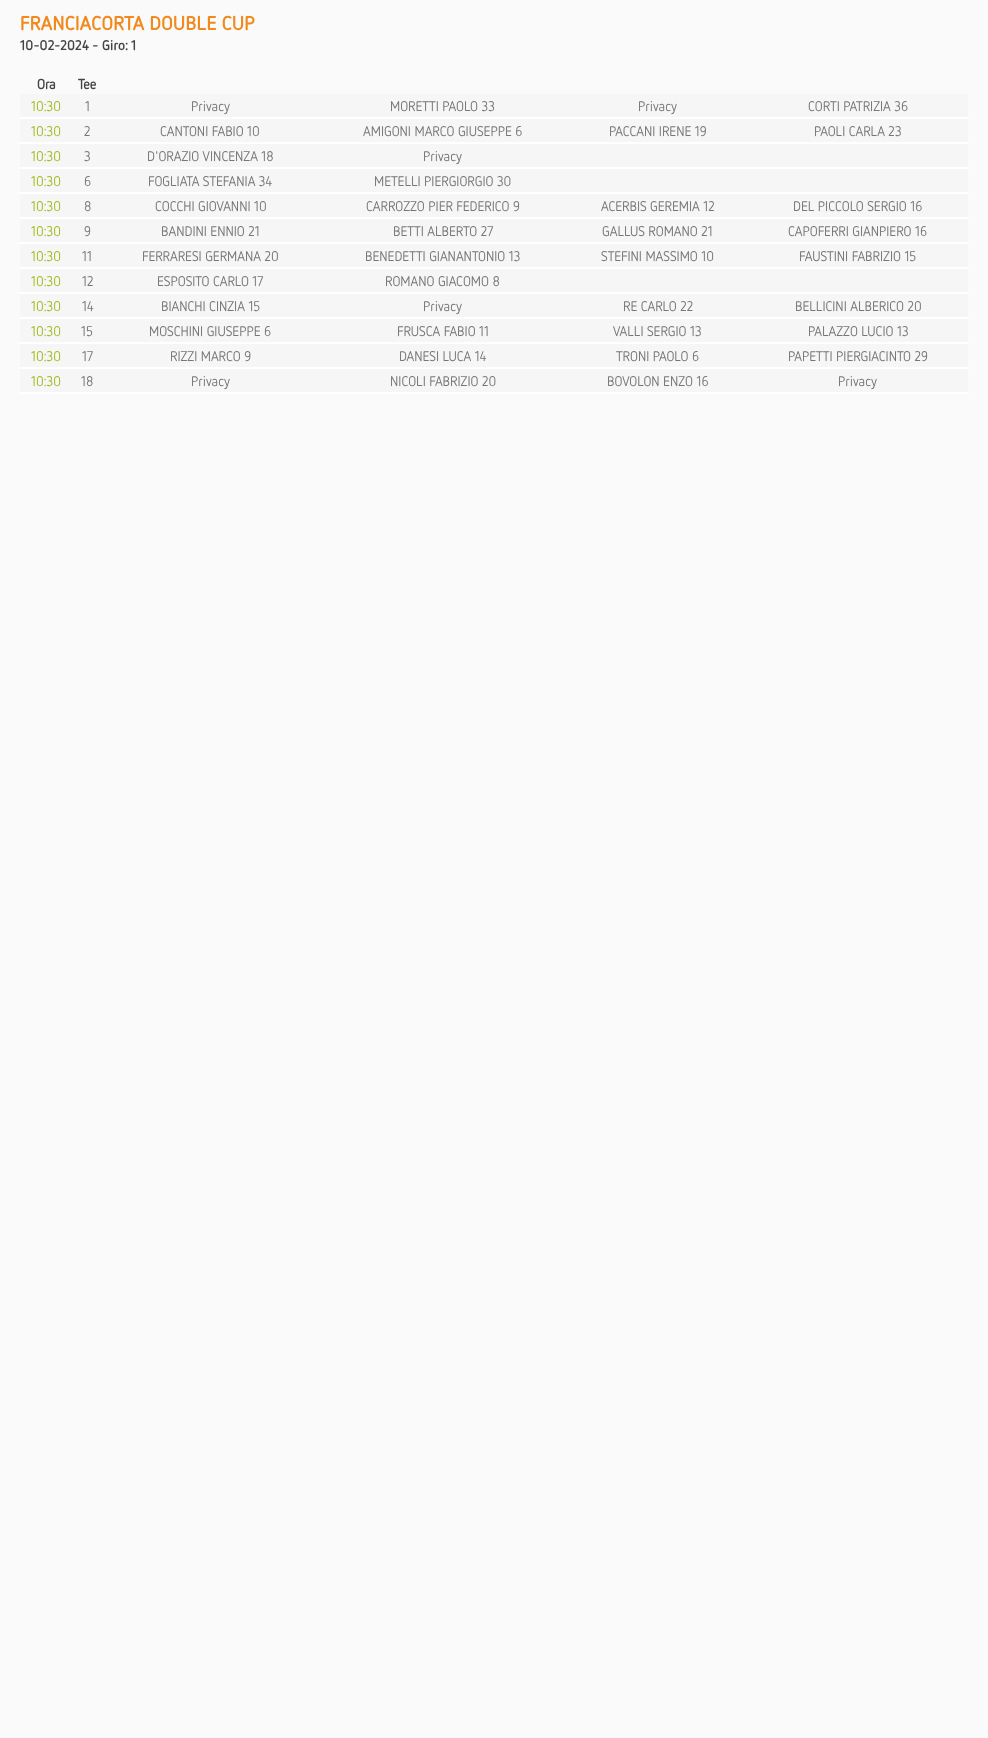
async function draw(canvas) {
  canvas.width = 988
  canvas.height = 1738
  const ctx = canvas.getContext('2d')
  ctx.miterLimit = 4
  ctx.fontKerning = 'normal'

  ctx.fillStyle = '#fafafa'
  ctx.fillRect(0, 0, 988, 1738)
  ctx.font = 'bold 20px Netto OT'
  ctx.fillStyle = '#f1891c'
  ctx.fillText('FRANCIACORTA DOUBLE CUP', 20, 30)
  ctx.font = 'bold 14px Netto OT'
  ctx.fillStyle = '#444'
  ctx.fillText('10-02-2024 - Giro: 1', 20, 50)
  ctx.font = 'bold 14px "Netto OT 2"'
  ctx.fillText('Ora', 37, 89)
  ctx.fillText('Tee', 78, 89)
  ctx.fillStyle = '#f6f6f6'
  ctx.fillRect(20, 94, 948, 23)
  ctx.font = '14px Netto OT'
  ctx.fillStyle = '#a3b919'
  ctx.fillText('10:30', 31, 111)
  ctx.fillStyle = '#767676'
  ctx.fillText('1', 85, 111)
  ctx.fillText('Privacy', 191, 111)
  ctx.fillText('MORETTI PAOLO 33', 390, 111)
  ctx.fillText('Privacy', 638, 111)
  ctx.fillStyle = '#fff'
  ctx.fillRect(19, 117, 950, 2)
  ctx.fillStyle = '#767676'
  ctx.fillText('CORTI PATRIZIA 36', 808, 111)
  ctx.fillStyle = '#f6f6f6'
  ctx.fillRect(20, 119, 948, 23)
  ctx.fillStyle = '#a3b919'
  ctx.fillText('10:30', 31, 136)
  ctx.fillStyle = '#767676'
  ctx.fillText('2', 84, 136)
  ctx.fillText('CANTONI FABIO 10', 160, 136)
  ctx.fillText('AMIGONI MARCO GIUSEPPE 6', 363, 136)
  ctx.fillText('PACCANI IRENE 19', 609, 136)
  ctx.fillStyle = '#fff'
  ctx.fillRect(19, 142, 950, 2)
  ctx.fillStyle = '#767676'
  ctx.fillText('PAOLI CARLA 23', 814, 136)
  ctx.fillStyle = '#f6f6f6'
  ctx.fillRect(20, 144, 948, 23)
  ctx.fillStyle = '#a3b919'
  ctx.fillText('10:30', 31, 161)
  ctx.fillStyle = '#767676'
  ctx.fillText('3', 84, 161)
  ctx.fillText('D\'ORAZIO VINCENZA 18', 147, 161)
  ctx.fillText('Privacy', 423, 161)
  ctx.fillStyle = '#fff'
  ctx.fillRect(19, 167, 950, 2)
  ctx.fillStyle = '#f6f6f6'
  ctx.fillRect(20, 169, 948, 23)
  ctx.fillStyle = '#a3b919'
  ctx.fillText('10:30', 31, 186)
  ctx.fillStyle = '#767676'
  ctx.fillText('6', 84, 186)
  ctx.fillText('FOGLIATA STEFANIA 34', 148, 186)
  ctx.fillText('METELLI PIERGIORGIO 30', 374, 186)
  ctx.fillStyle = '#fff'
  ctx.fillRect(19, 192, 950, 2)
  ctx.fillStyle = '#f6f6f6'
  ctx.fillRect(20, 194, 948, 23)
  ctx.fillStyle = '#a3b919'
  ctx.fillText('10:30', 31, 211)
  ctx.fillStyle = '#767676'
  ctx.fillText('8', 84, 211)
  ctx.fillText('COCCHI GIOVANNI 10', 155, 211)
  ctx.fillText('CARROZZO PIER FEDERICO 9', 366, 211)
  ctx.fillText('ACERBIS GEREMIA 12', 601, 211)
  ctx.fillStyle = '#fff'
  ctx.fillRect(19, 217, 950, 2)
  ctx.fillStyle = '#767676'
  ctx.fillText('DEL PICCOLO SERGIO 16', 793, 211)
  ctx.fillStyle = '#f6f6f6'
  ctx.fillRect(20, 219, 948, 23)
  ctx.fillStyle = '#a3b919'
  ctx.fillText('10:30', 31, 236)
  ctx.fillStyle = '#767676'
  ctx.fillText('9', 84, 236)
  ctx.fillText('BANDINI ENNIO 21', 161, 236)
  ctx.fillText('BETTI ALBERTO 27', 393, 236)
  ctx.fillText('GALLUS ROMANO 21', 602, 236)
  ctx.fillStyle = '#fff'
  ctx.fillRect(19, 242, 950, 2)
  ctx.fillStyle = '#767676'
  ctx.fillText('CAPOFERRI GIANPIERO 16', 788, 236)
  ctx.fillStyle = '#f6f6f6'
  ctx.fillRect(20, 244, 948, 23)
  ctx.fillStyle = '#a3b919'
  ctx.fillText('10:30', 31, 261)
  ctx.fillStyle = '#767676'
  ctx.fillText('11', 82, 261)
  ctx.fillText('FERRARESI GERMANA 20', 142, 261)
  ctx.fillText('BENEDETTI GIANANTONIO 13', 365, 261)
  ctx.fillText('STEFINI MASSIMO 10', 601, 261)
  ctx.fillStyle = '#fff'
  ctx.fillRect(19, 267, 950, 2)
  ctx.fillStyle = '#767676'
  ctx.fillText('FAUSTINI FABRIZIO 15', 799, 261)
  ctx.fillStyle = '#f6f6f6'
  ctx.fillRect(20, 269, 948, 23)
  ctx.fillStyle = '#a3b919'
  ctx.fillText('10:30', 31, 286)
  ctx.fillStyle = '#767676'
  ctx.fillText('12', 82, 286)
  ctx.fillText('ESPOSITO CARLO 17', 157, 286)
  ctx.fillText('ROMANO GIACOMO 8', 385, 286)
  ctx.fillStyle = '#fff'
  ctx.fillRect(19, 292, 950, 2)
  ctx.fillStyle = '#f6f6f6'
  ctx.fillRect(20, 294, 948, 23)
  ctx.fillStyle = '#a3b919'
  ctx.fillText('10:30', 31, 311)
  ctx.fillStyle = '#767676'
  ctx.fillText('14', 82, 311)
  ctx.fillText('BIANCHI CINZIA 15', 161, 311)
  ctx.fillText('Privacy', 423, 311)
  ctx.fillText('RE CARLO 22', 623, 311)
  ctx.fillStyle = '#fff'
  ctx.fillRect(19, 317, 950, 2)
  ctx.fillStyle = '#767676'
  ctx.fillText('BELLICINI ALBERICO 20', 795, 311)
  ctx.fillStyle = '#f6f6f6'
  ctx.fillRect(20, 319, 948, 23)
  ctx.fillStyle = '#a3b919'
  ctx.fillText('10:30', 31, 336)
  ctx.fillStyle = '#767676'
  ctx.fillText('15', 81, 336)
  ctx.fillText('MOSCHINI GIUSEPPE 6', 149, 336)
  ctx.fillText('FRUSCA FABIO 11', 397, 336)
  ctx.fillText('VALLI SERGIO 13', 613, 336)
  ctx.fillStyle = '#fff'
  ctx.fillRect(19, 342, 950, 2)
  ctx.fillStyle = '#767676'
  ctx.fillText('PALAZZO LUCIO 13', 808, 336)
  ctx.fillStyle = '#f6f6f6'
  ctx.fillRect(20, 344, 948, 23)
  ctx.fillStyle = '#a3b919'
  ctx.fillText('10:30', 31, 361)
  ctx.fillStyle = '#767676'
  ctx.fillText('17', 82, 361)
  ctx.fillText('RIZZI MARCO 9', 170, 361)
  ctx.fillText('DANESI LUCA 14', 399, 361)
  ctx.fillText('TRONI PAOLO 6', 616, 361)
  ctx.fillStyle = '#fff'
  ctx.fillRect(19, 367, 950, 2)
  ctx.fillStyle = '#767676'
  ctx.fillText('PAPETTI PIERGIACINTO 29', 788, 361)
  ctx.fillStyle = '#f6f6f6'
  ctx.fillRect(20, 369, 948, 23)
  ctx.fillStyle = '#a3b919'
  ctx.fillText('10:30', 31, 386)
  ctx.fillStyle = '#767676'
  ctx.fillText('18', 81, 386)
  ctx.fillText('Privacy', 191, 386)
  ctx.fillText('NICOLI FABRIZIO 20', 390, 386)
  ctx.fillText('BOVOLON ENZO 16', 607, 386)
  ctx.fillStyle = '#fff'
  ctx.fillRect(19, 392, 950, 2)
  ctx.fillStyle = '#767676'
  ctx.fillText('Privacy', 838, 386)
}

draw(document.querySelector('canvas'))
